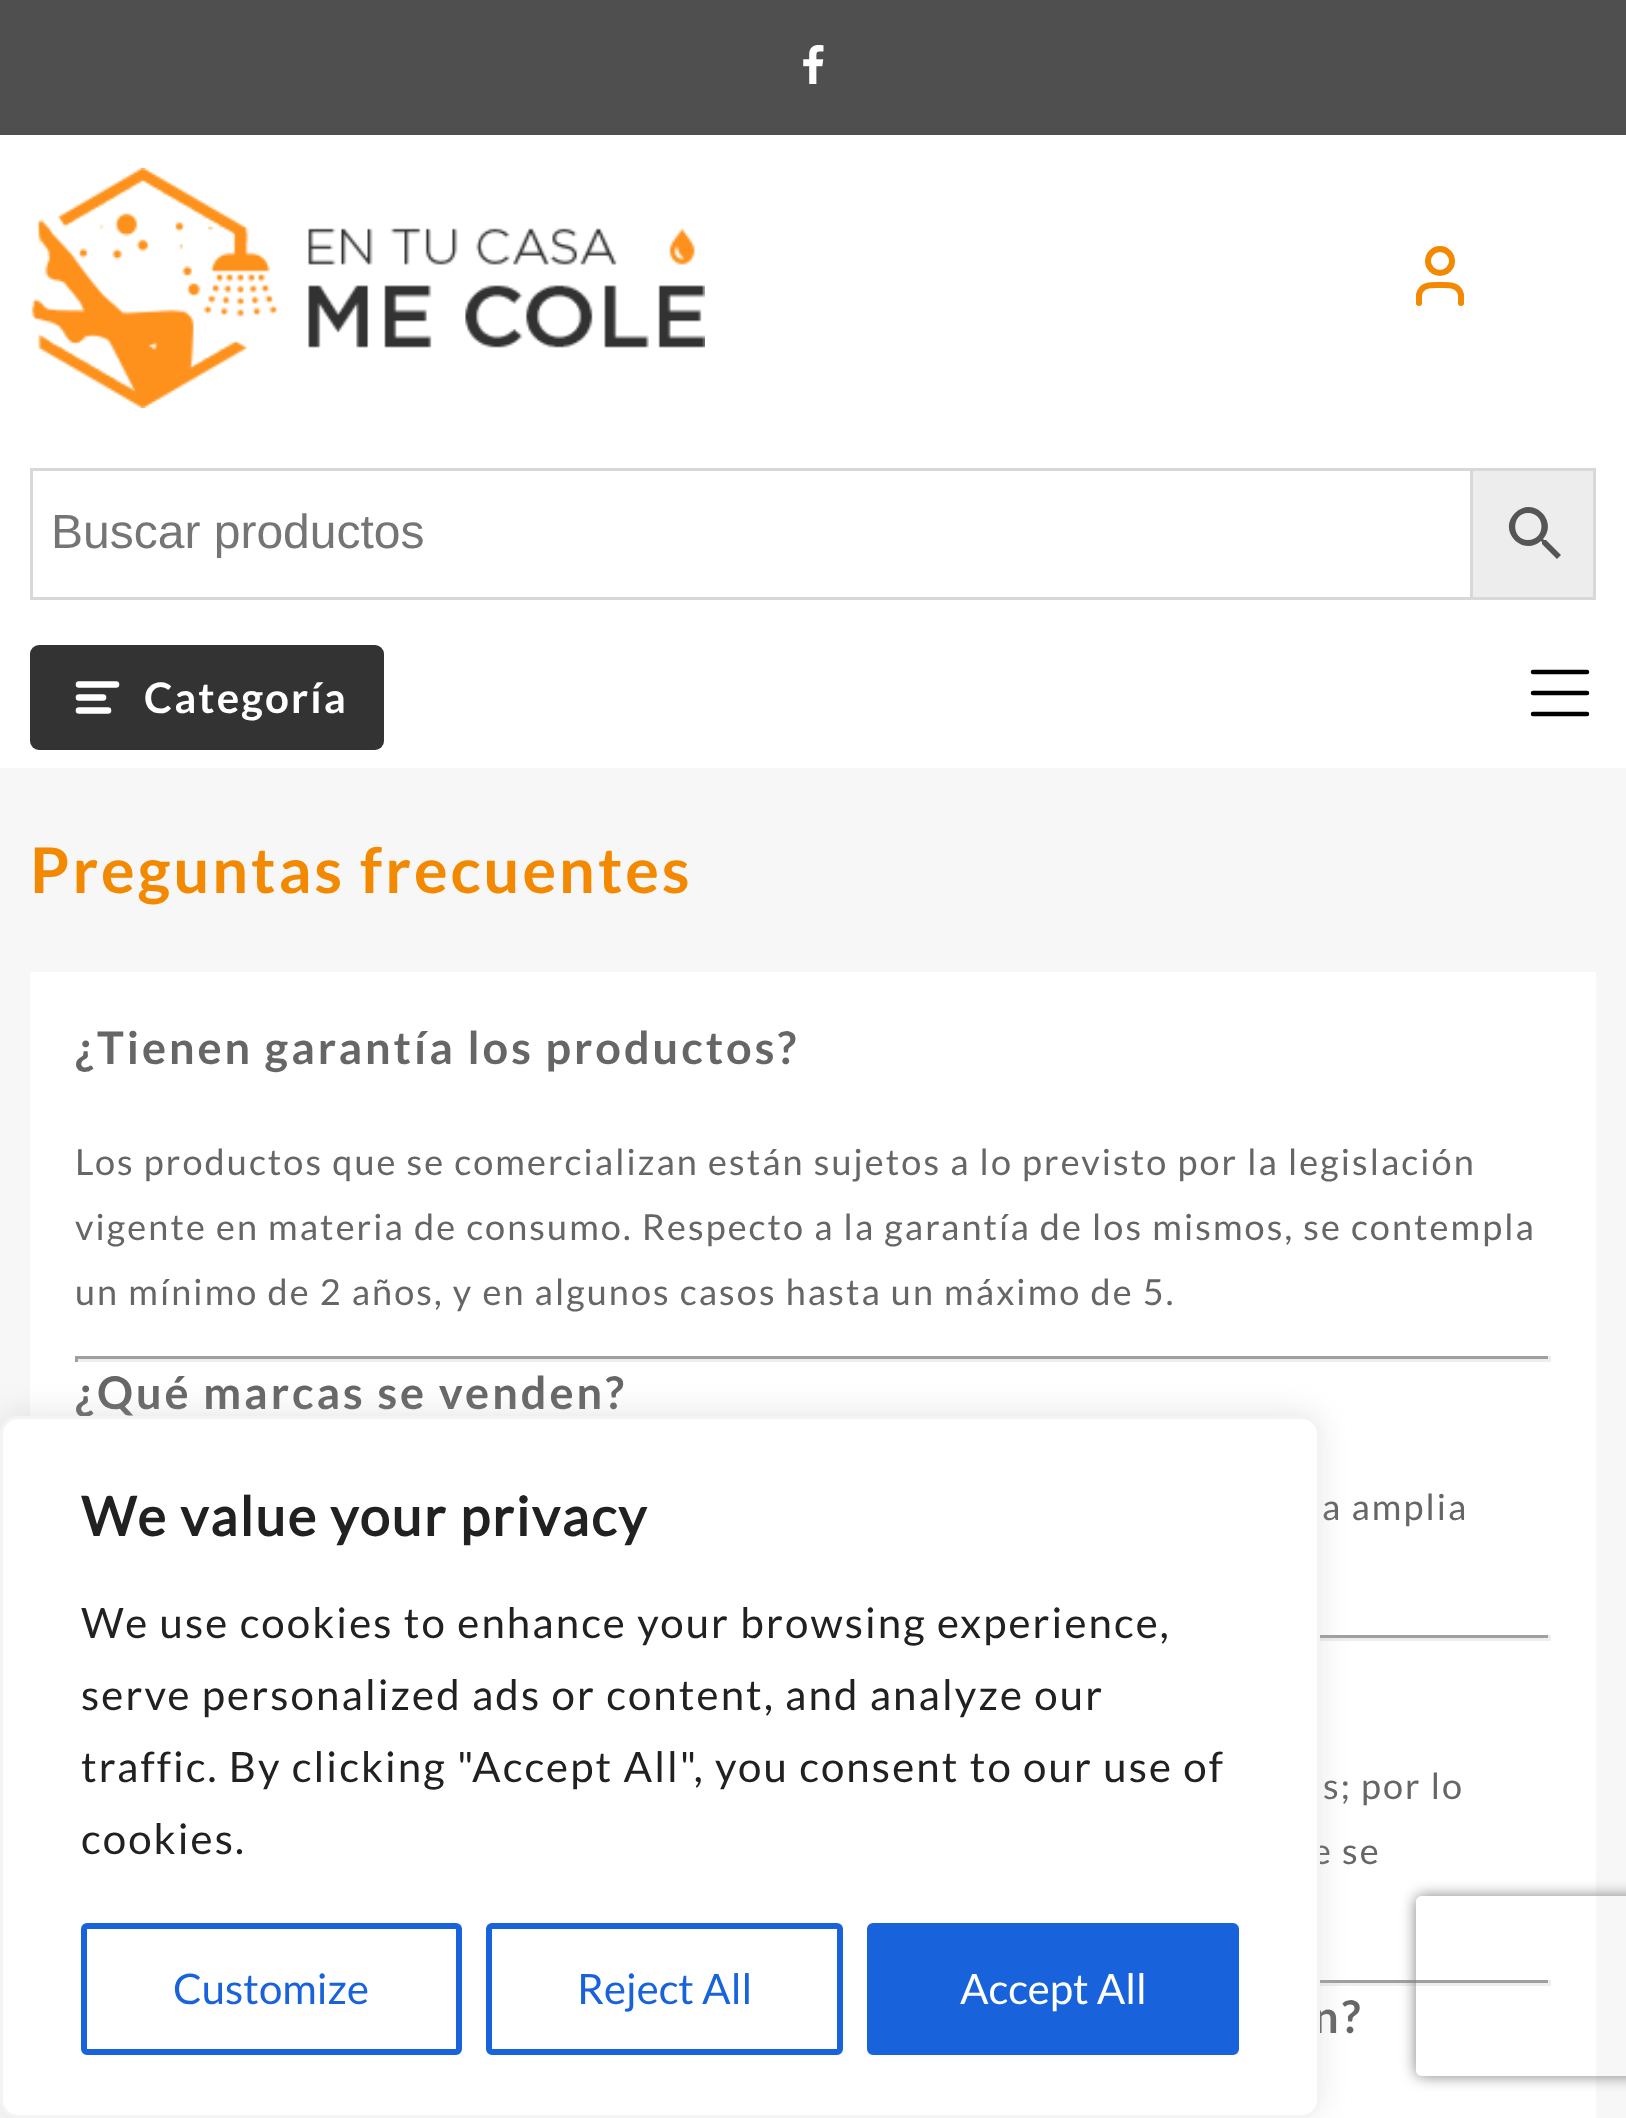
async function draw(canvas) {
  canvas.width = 1626
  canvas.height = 2118
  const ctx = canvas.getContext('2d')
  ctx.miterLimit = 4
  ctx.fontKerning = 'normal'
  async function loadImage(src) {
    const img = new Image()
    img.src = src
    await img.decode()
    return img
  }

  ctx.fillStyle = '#f7f7f7'
  ctx.fillRect(0, 0, 1626, 2118)
  ctx.fillStyle = '#fff'
  ctx.fillRect(0, 135, 1626, 633)
  ctx.fillStyle = '#4f4f4f'
  ctx.fillRect(0, 0, 1626, 135)
  ctx.drawImage(await loadImage('image0.png'), 803, 45, 21, 39)
  ctx.drawImage(await loadImage('image1.png'), 31, 168, 674, 240)
  ctx.beginPath()
  ctx.arc(1440, 261, 12, 0, 2 * Math.PI)
  ctx.strokeStyle = '#f28900'
  ctx.lineWidth = 6
  ctx.stroke()
  ctx.beginPath()
  ctx.moveTo(1461, 303)
  ctx.lineTo(1461, 294.5)
  ctx.bezierCurveTo(1458.5, 284, 1448.5, 285, 1440, 285)
  ctx.bezierCurveTo(1431.5, 285, 1421.5, 284, 1419, 294.5)
  ctx.lineTo(1419, 303)
  ctx.lineCap = 'round'
  ctx.lineJoin = 'round'
  ctx.stroke()
  ctx.fillStyle = '#ededed'
  ctx.beginPath()
  ctx.rect(1471.5, 469.5, 123, 129)
  ctx.fill()
  ctx.strokeStyle = '#d8d8d8'
  ctx.lineWidth = 3
  ctx.lineJoin = 'miter'
  ctx.stroke()
  ctx.strokeRect(31.5, 469.5, 1440, 129)
  ctx.font = '48px Liberation Sans'
  ctx.fillStyle = '#757575'
  ctx.fillText('Buscar productos', 51, 548)
  ctx.fillStyle = '#555'
  ctx.beginPath()
  ctx.moveTo(1546, 540)
  ctx.lineTo(1544, 540)
  ctx.lineTo(1543, 539)
  ctx.bezierCurveTo(1559, 521, 1533, 495, 1515, 513)
  ctx.bezierCurveTo(1497, 531, 1523, 557, 1541, 541)
  ctx.lineTo(1542, 542)
  ctx.lineTo(1542, 544)
  ctx.lineTo(1557, 559)
  ctx.lineTo(1561, 555)
  ctx.closePath()
  ctx.moveTo(1528, 540)
  ctx.bezierCurveTo(1511, 540, 1511, 513, 1528, 513)
  ctx.bezierCurveTo(1546, 513, 1546, 540, 1528, 540)
  ctx.closePath()
  ctx.fill()
  ctx.fillStyle = '#333'
  ctx.beginPath()
  ctx.roundRect(30, 645, 354, 105, 9)
  ctx.fill()
  ctx.beginPath()
  ctx.moveTo(79, 684.5)
  ctx.lineTo(116, 684.5)
  ctx.moveTo(79, 697.5)
  ctx.lineTo(103, 697.5)
  ctx.moveTo(79, 710.5)
  ctx.lineTo(108, 710.5)
  ctx.strokeStyle = '#fff'
  ctx.lineWidth = 6.6
  ctx.stroke()
  ctx.letterSpacing = '2.1px'
  ctx.font = 'bold 42px Lato'
  ctx.fillStyle = '#fff'
  ctx.fillText('Categoría', 144, 713)
  ctx.beginPath()
  ctx.moveTo(1533, 672)
  ctx.lineTo(1587, 672)
  ctx.moveTo(1533, 693)
  ctx.lineTo(1587, 693)
  ctx.moveTo(1533, 714)
  ctx.lineTo(1587, 714)
  ctx.strokeStyle = '#000'
  ctx.lineWidth = 4.5
  ctx.lineJoin = 'round'
  ctx.stroke()
  ctx.letterSpacing = '3px'
  ctx.font = 'bold 63px Lato'
  ctx.fillStyle = '#f28900'
  ctx.fillText('Preguntas frecuentes', 30, 893)
  ctx.fillStyle = '#fff'
  ctx.fillRect(30, 972, 1566, 1146)
  ctx.font = 'bold 45px Lato'
  ctx.fillStyle = '#666'
  ctx.fillText('¿Tienen garantía los productos?', 75, 1064)
  ctx.letterSpacing = '2.1px'
  ctx.font = '36px Lato'
  ctx.fillText('Los productos que se comercializan están sujetos a lo previsto por la legislación', 75, 1175)
  ctx.fillText('vigente en materia de consumo. Respecto a la garantía de los mismos, se contempla', 75, 1240)
  ctx.fillText('un mínimo de 2 años, y en algunos casos hasta un máximo de 5.', 75, 1305)
  ctx.fillStyle = '#9f9f9f'
  ctx.fillRect(75, 1356, 1476, 3)
  ctx.fillStyle = '#eee'
  ctx.fillRect(1548, 1356, 3, 6)
  ctx.fillRect(75, 1359, 1476, 3)
  ctx.fillStyle = '#9f9f9f'
  ctx.fillRect(75, 1356, 3, 6)
  ctx.letterSpacing = '3px'
  ctx.font = 'bold 45px Lato'
  ctx.fillStyle = '#666'
  ctx.fillText('¿Qué marcas se venden?', 75, 1409)
  ctx.letterSpacing = '2.1px'
  ctx.font = '36px Lato'
  ctx.fillText('a amplia', 1322, 1520)
  ctx.fillStyle = '#9f9f9f'
  ctx.fillRect(1320, 1635, 231, 3)
  ctx.fillStyle = '#eee'
  ctx.fillRect(1548, 1635, 3, 6)
  ctx.fillRect(1320, 1638, 231, 3)
  ctx.fillStyle = '#666'
  ctx.fillText('s; por lo', 1323, 1799)
  ctx.fillText('e se', 1312, 1864)
  ctx.fillStyle = '#9f9f9f'
  ctx.fillRect(1320, 1980, 231, 3)
  ctx.fillStyle = '#eee'
  ctx.fillRect(1548, 1980, 3, 6)
  ctx.fillRect(1320, 1983, 231, 3)
  ctx.letterSpacing = '3px'
  ctx.font = 'bold 45px Lato'
  ctx.fillStyle = '#666'
  ctx.fillText('n?', 1313, 2033)
  ctx.fillStyle = '#acabab4d'
  ctx.filter = 'blur(15px)'
  ctx.beginPath()
  ctx.roundRect(0, 1413, 1320, 702, 18)
  ctx.fill()
  ctx.filter = 'none'
  ctx.fillStyle = '#fff'
  ctx.beginPath()
  ctx.roundRect(1.5, 1417.5, 1317, 699, 16.5)
  ctx.fill()
  ctx.strokeStyle = '#f4f4f4'
  ctx.lineWidth = 3
  ctx.lineJoin = 'miter'
  ctx.stroke()
  ctx.letterSpacing = '2.1px'
  ctx.font = 'bold 54px "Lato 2"'
  ctx.fillStyle = '#212121'
  ctx.fillText('We value your privacy', 81, 1536)
  ctx.font = '42px Lato'
  ctx.fillText('We use cookies to enhance your browsing experience,', 81, 1638)
  ctx.fillText('serve personalized ads or content, and analyze our', 81, 1710)
  ctx.fillText('traffic. By clicking "Accept All", you consent to our use of', 81, 1782)
  ctx.fillText('cookies.', 81, 1854)
  ctx.beginPath()
  ctx.roundRect(84, 1926, 375, 126, 3)
  ctx.strokeStyle = '#1863dc'
  ctx.lineWidth = 6
  ctx.stroke()
  ctx.letterSpacing = '0px'
  ctx.fillStyle = '#1863dc'
  ctx.fillText('Customize', 173, 2004)
  ctx.beginPath()
  ctx.roundRect(489, 1926, 351, 126, 3)
  ctx.stroke()
  ctx.fillText('Reject All', 577, 2004)
  ctx.beginPath()
  ctx.roundRect(870, 1926, 366, 126, 3)
  ctx.fill()
  ctx.stroke()
  ctx.fillStyle = '#fff'
  ctx.fillText('Accept All', 960, 2004)
  ctx.save()
  ctx.beginPath()
  ctx.moveTo(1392, 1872)
  ctx.lineTo(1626, 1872)
  ctx.lineTo(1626, 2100)
  ctx.lineTo(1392, 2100)
  ctx.closePath()
  ctx.moveTo(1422, 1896)
  ctx.lineTo(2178, 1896)
  ctx.bezierCurveTo(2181.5, 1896, 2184, 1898.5, 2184, 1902)
  ctx.lineTo(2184, 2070)
  ctx.bezierCurveTo(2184, 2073.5, 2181.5, 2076, 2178, 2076)
  ctx.lineTo(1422, 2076)
  ctx.bezierCurveTo(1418.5, 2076, 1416, 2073.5, 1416, 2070)
  ctx.lineTo(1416, 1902)
  ctx.bezierCurveTo(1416, 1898.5, 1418.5, 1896, 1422, 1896)
  ctx.closePath()
  ctx.clip('evenodd')
  ctx.fillStyle = '#808080'
  ctx.filter = 'blur(7.5px)'
  ctx.beginPath()
  ctx.roundRect(1416, 1896, 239, 180, 6)
  ctx.fill()
  ctx.filter = 'none'
  ctx.restore()
}

draw(document.querySelector('canvas'))
